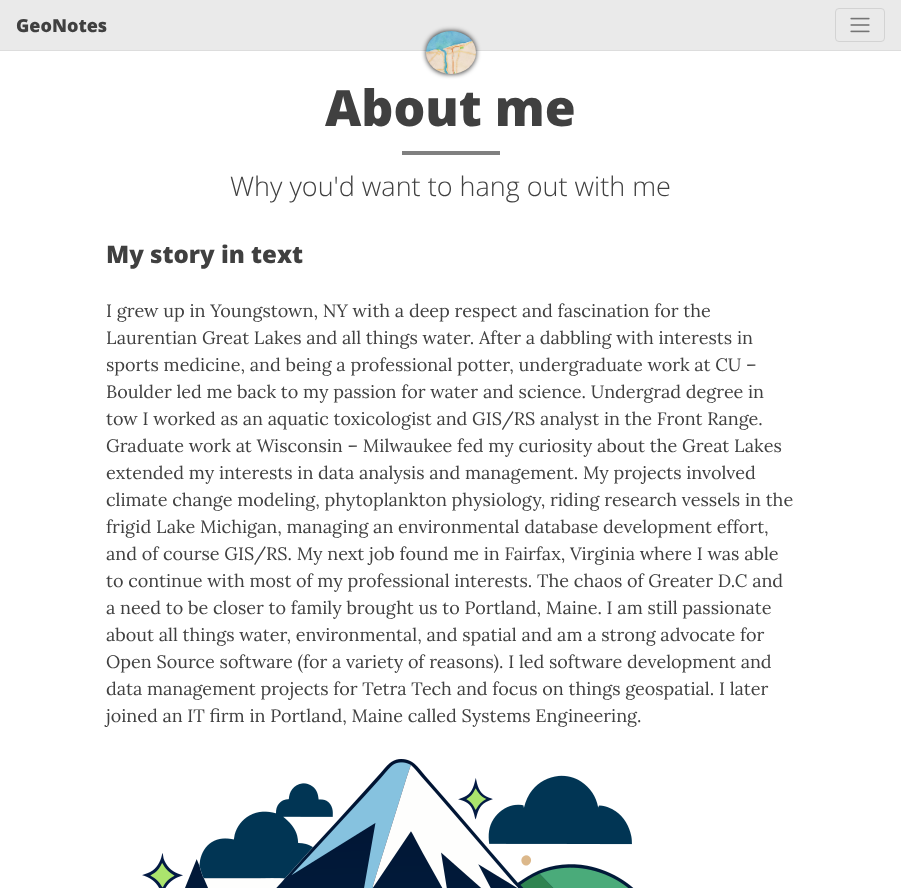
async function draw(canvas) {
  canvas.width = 901
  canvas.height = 888
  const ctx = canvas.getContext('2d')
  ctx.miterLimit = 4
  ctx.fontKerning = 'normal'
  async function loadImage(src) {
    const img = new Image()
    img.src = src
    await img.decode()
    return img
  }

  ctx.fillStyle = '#fff'
  ctx.fillRect(0, 0, 901, 888)
  ctx.fillStyle = '#eaeaea'
  ctx.fillRect(0, 0, 901, 50)
  ctx.fillStyle = '#ddd'
  ctx.fillRect(0, 50, 901, 1)
  ctx.font = '800 18px Open Sans'
  ctx.fillStyle = '#404040'
  ctx.fillText('GeoNotes', 16, 32)
  ctx.fillStyle = '#000000cc'
  ctx.filter = 'blur(2.5px)'
  ctx.beginPath()
  ctx.roundRect(426, 31, 50, 43, 21.5)
  ctx.fill()
  ctx.filter = 'none'
  ctx.drawImage(await loadImage('image0.png'), 426, 31, 50, 43)
  ctx.beginPath()
  ctx.roundRect(835.5, 8.5, 49, 33, 3.5)
  ctx.strokeStyle = '#d3d3d3'
  ctx.stroke()
  ctx.drawImage(await loadImage('image1.png'), 850, 17, 20, 16)
  ctx.font = '800 50px Open Sans'
  ctx.fillStyle = '#404040'
  ctx.fillText('About me', 325, 126)
  ctx.fillStyle = '#808080'
  ctx.fillRect(402, 151, 98, 4)
  ctx.font = '300 27px Open Sans'
  ctx.fillStyle = '#404040'
  ctx.fillText('Why you\'d want to hang out with me', 230, 196)
  ctx.font = '800 24px Open Sans'
  ctx.fillText('My story in text', 106, 263)
  ctx.font = '18px Lora'
  ctx.fillText('I grew up in Youngstown, NY with a deep respect and fascination for the', 106, 317)
  ctx.fillText('Laurentian Great Lakes and all things water. After a dabbling with interests in', 106, 344)
  ctx.fillText('sports medicine, and being a professional potter, undergraduate work at CU –', 106, 371)
  ctx.fillText('Boulder led me back to my passion for water and science. Undergrad degree in', 106, 398)
  ctx.fillText('tow I worked as an aquatic toxicologist and GIS/RS analyst in the Front Range.', 106, 425)
  ctx.fillText('Graduate work at Wisconsin – Milwaukee fed my curiosity about the Great Lakes', 106, 452)
  ctx.fillText('extended my interests in data analysis and management. My projects involved', 106, 479)
  ctx.fillText('climate change modeling, phytoplankton physiology, riding research vessels in the', 106, 506)
  ctx.fillText('frigid Lake Michigan, managing an environmental database development effort,', 106, 533)
  ctx.fillText('and of course GIS/RS. My next job found me in Fairfax, Virginia where I was able', 106, 560)
  ctx.fillText('to continue with most of my professional interests. The chaos of Greater D.C and', 106, 587)
  ctx.fillText('a need to be closer to family brought us to Portland, Maine. I am still passionate', 106, 614)
  ctx.fillText('about all things water, environmental, and spatial and am a strong advocate for', 106, 641)
  ctx.fillText('Open Source software (for a variety of reasons). I led software development and', 106, 668)
  ctx.fillText('data management projects for Tetra Tech and focus on things geospatial. I later', 106, 695)
  ctx.fillText('joined an IT firm in Portland, Maine called Systems Engineering.', 106, 722)
  ctx.drawImage(await loadImage('image2.png'), 142, 759, 492, 129)
}

draw(document.querySelector('canvas'))
